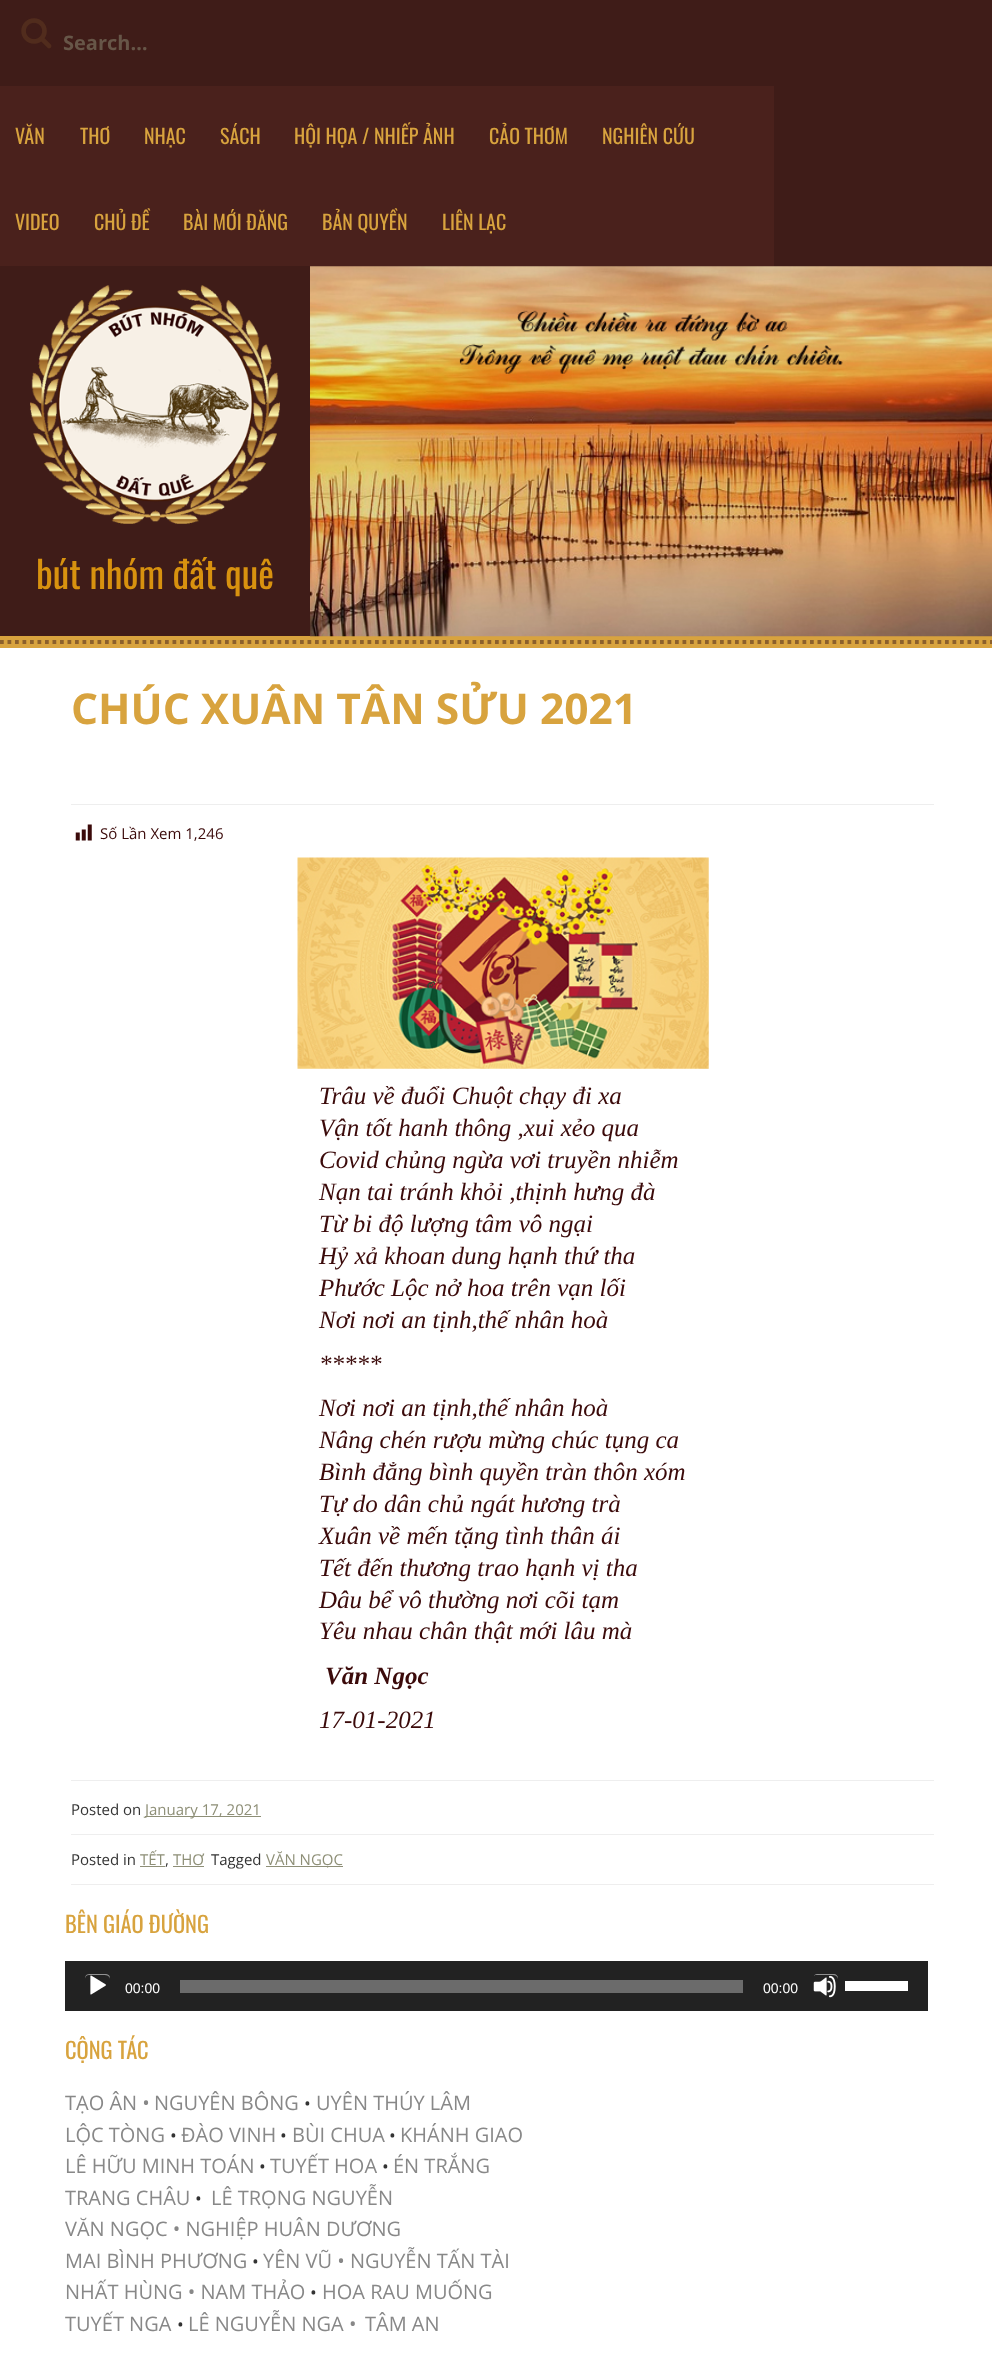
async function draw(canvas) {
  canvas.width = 992
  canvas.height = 2380
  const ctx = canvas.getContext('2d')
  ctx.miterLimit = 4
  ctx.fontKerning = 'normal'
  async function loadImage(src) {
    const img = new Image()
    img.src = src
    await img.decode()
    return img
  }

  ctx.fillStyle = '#fff'
  ctx.fillRect(0, 0, 992, 2380)
  ctx.fillStyle = '#3f1c18'
  ctx.fillRect(0, 0, 992, 636)
  ctx.drawImage(await loadImage('image0.png'), 21, 18, 31, 31)
  ctx.font = 'bold 20px Open Sans'
  ctx.fillStyle = '#675648'
  ctx.fillText('Search…', 63, 50)
  ctx.fillStyle = '#4a211c'
  ctx.fillRect(0, 86, 774, 180)
  ctx.font = '20px Oswald'
  ctx.fillStyle = '#d8a33e'
  ctx.fillText('VĂN', 15, 144)
  ctx.fillText('THƠ', 80, 144)
  ctx.fillText('NHẠC', 144, 144)
  ctx.fillText('SÁCH', 220, 144)
  ctx.fillText('HỘI HỌA / NHIẾP ẢNH', 294, 144)
  ctx.fillText('CẢO THƠM', 489, 144)
  ctx.fillText('NGHIÊN CỨU', 602, 144)
  ctx.fillText('VIDEO', 15, 230)
  ctx.fillText('CHỦ ĐỀ', 94, 230)
  ctx.fillText('BÀI MỚI ĐĂNG', 183, 230)
  ctx.fillText('BẢN QUYỀN', 322, 230)
  ctx.fillText('LIÊN LẠC', 442, 230)
  ctx.fillRect(0, 636, 992, 12)
  ctx.drawImage(await loadImage('image1.png'), 30, 285, 250, 239)
  ctx.font = '37.5px Oswald'
  ctx.fillStyle = '#d8920f'
  ctx.fillText('bút nhóm đất quê', 36, 589)
  ctx.drawImage(await loadImage('image2.png'), 310, 266, 682, 371)
  ctx.beginPath()
  ctx.moveTo(0, 642)
  ctx.lineTo(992.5, 642)
  ctx.strokeStyle = '#8c602b'
  ctx.lineWidth = 3.8
  ctx.setLineDash([3.75, 3.75])
  ctx.stroke()
  ctx.font = 'bold 42.5px Open Sans'
  ctx.fillStyle = '#d8a33e'
  ctx.fillText('CHÚC XUÂN TÂN SỬU 2021', 71, 724)
  ctx.fillStyle = '#eee'
  ctx.fillRect(71, 804, 863, 1)
  ctx.drawImage(await loadImage('image3.png'), 75, 824, 17, 17)
  ctx.font = '15px Open Sans'
  ctx.fillStyle = '#3b0a0a'
  ctx.fillText('Số Lần Xem 1,246', 100, 839)
  ctx.drawImage(await loadImage('image4.png'), 297, 857, 412, 212)
  ctx.font = 'italic 25px Liberation Serif'
  ctx.fillText('Trâu về đuổi Chuột chạy đi xa', 319, 1104)
  ctx.fillText('Vận tốt hanh thông ,xui xẻo qua', 319, 1136)
  ctx.fillText('Covid chủng ngừa vơi truyền nhiễm', 319, 1168)
  ctx.fillText('Nạn tai tránh khỏi ,thịnh hưng đà', 319, 1200)
  ctx.fillText('Từ bi độ lượng tâm vô ngại', 319, 1232)
  ctx.fillText('Hỷ xả khoan dung hạnh thứ tha', 319, 1264)
  ctx.fillText('Phước Lộc nở hoa trên vạn lối', 319, 1296)
  ctx.fillText('Nơi nơi an tịnh,thế nhân hoà', 319, 1328)
  ctx.fillText('*****', 319, 1372)
  ctx.fillText('Nơi nơi an tịnh,thế nhân hoà', 319, 1416)
  ctx.fillText('Nâng chén rượu mừng chúc tụng ca', 319, 1448)
  ctx.fillText('Bình đẳng bình quyền tràn thôn xóm', 319, 1480)
  ctx.fillText('Tự do dân chủ ngát hương trà', 319, 1512)
  ctx.fillText('Xuân về mến tặng tình thân ái', 319, 1544)
  ctx.fillText('Tết đến thương trao hạnh vị tha', 319, 1576)
  ctx.fillText('Dâu bể vô thường nơi cõi tạm', 319, 1608)
  ctx.fillText('Yêu nhau chân thật mới lâu mà', 319, 1639)
  ctx.font = 'italic bold 25px Liberation Serif'
  ctx.fillText('Văn Ngọc', 325, 1684)
  ctx.font = 'italic 25px Liberation Serif'
  ctx.fillText('17-01-2021', 319, 1728)
  ctx.fillStyle = '#eee'
  ctx.fillRect(71, 1780, 863, 1)
  ctx.font = '15px Open Sans'
  ctx.fillStyle = '#333'
  ctx.fillText('Posted on', 71, 1815)
  ctx.fillStyle = '#8e8f77'
  ctx.fillRect(145, 1816, 116, 1)
  ctx.fillText('January 17, 2021', 145, 1815)
  ctx.fillStyle = '#eee'
  ctx.fillRect(71, 1834, 863, 1)
  ctx.fillRect(71, 1884, 863, 1)
  ctx.fillStyle = '#333'
  ctx.fillText('Posted in', 71, 1865)
  ctx.fillStyle = '#8e8f77'
  ctx.fillText('TẾT', 140, 1865)
  ctx.fillStyle = '#333'
  ctx.fillText(',', 165, 1865)
  ctx.fillStyle = '#8e8f77'
  ctx.fillRect(140, 1866, 25, 1)
  ctx.fillRect(173, 1866, 31, 1)
  ctx.fillText('THƠ', 173, 1865)
  ctx.fillStyle = '#333'
  ctx.fillText('Tagged', 211, 1865)
  ctx.fillStyle = '#8e8f77'
  ctx.fillRect(266, 1866, 77, 1)
  ctx.fillText('VĂN NGỌC', 266, 1865)
  ctx.font = '22.5px Oswald'
  ctx.fillStyle = '#d8a33e'
  ctx.fillText('BÊN GIÁO ĐƯỜNG', 65, 1933)
  ctx.fillStyle = '#222'
  ctx.fillRect(65, 1961, 863, 50)
  ctx.drawImage(await loadImage('image5.png'), 90, 1975, 16, 20)
  ctx.fillStyle = '#919191'
  ctx.beginPath()
  ctx.moveTo(89, 1975)
  ctx.lineTo(103, 1975)
  ctx.bezierCurveTo(108, 1975, 109.5, 1976.5, 110, 1979)
  ctx.bezierCurveTo(110, 1974, 107.5, 1974, 103, 1974)
  ctx.lineTo(92, 1974)
  ctx.bezierCurveTo(88.5, 1974, 85, 1974, 85, 1978.5)
  ctx.bezierCurveTo(85.5, 1976.5, 86.5, 1975, 89, 1975)
  ctx.closePath()
  ctx.fill()
  ctx.font = '14px Liberation Sans'
  ctx.fillStyle = '#fff'
  ctx.fillText('00:00', 125, 1993)
  ctx.fillStyle = '#6b6b6b'
  ctx.fillRect(180, 1980, 563, 13)
  ctx.fillStyle = '#fff'
  ctx.fillText('00:00', 763, 1993)
  ctx.drawImage(await loadImage('image6.png'), 813, 1975, 23, 23)
  ctx.fillStyle = '#919191'
  ctx.beginPath()
  ctx.moveTo(816, 1975)
  ctx.lineTo(831, 1975)
  ctx.bezierCurveTo(836, 1975, 837.5, 1976.5, 838, 1979)
  ctx.lineTo(838, 1978)
  ctx.bezierCurveTo(838, 1976, 836, 1974, 834, 1974)
  ctx.lineTo(817, 1974)
  ctx.bezierCurveTo(815.5, 1974, 814, 1975, 813.5, 1976.5)
  ctx.bezierCurveTo(814, 1975.5, 815, 1975, 816, 1975)
  ctx.closePath()
  ctx.fill()
  ctx.fillStyle = '#fff'
  ctx.fillRect(845, 1981, 63, 10)
  ctx.font = '22.5px Oswald'
  ctx.fillStyle = '#d8a33e'
  ctx.fillText('CỘNG TÁC', 65, 2059)
  ctx.font = '20px Open Sans'
  ctx.fillStyle = '#888'
  ctx.fillText('TẠO ÂN •', 65, 2110)
  ctx.fillText('NGUYÊN BÔNG', 154, 2110)
  ctx.font = '18px Open Sans'
  ctx.fillStyle = '#333'
  ctx.fillText('•', 304, 2110)
  ctx.font = '20px Open Sans'
  ctx.fillStyle = '#888'
  ctx.fillText('UYÊN THÚY LÂM', 316, 2110)
  ctx.fillText('LỘC TÒNG', 65, 2142)
  ctx.font = '18px Open Sans'
  ctx.fillStyle = '#333'
  ctx.fillText('•', 170, 2142)
  ctx.font = '20px Open Sans'
  ctx.fillStyle = '#888'
  ctx.fillText('ĐÀO VINH', 181, 2142)
  ctx.font = '18px Open Sans'
  ctx.fillStyle = '#333'
  ctx.fillText('•', 280, 2142)
  ctx.font = '20px Open Sans'
  ctx.fillStyle = '#888'
  ctx.fillText('BÙI CHUA', 292, 2142)
  ctx.font = '18px Open Sans'
  ctx.fillStyle = '#333'
  ctx.fillText('•', 389, 2142)
  ctx.font = '20px Open Sans'
  ctx.fillStyle = '#888'
  ctx.fillText('KHÁNH GIAO', 400, 2142)
  ctx.fillText('LÊ HỮU MINH TOÁN', 65, 2173)
  ctx.font = '18px Open Sans'
  ctx.fillStyle = '#333'
  ctx.fillText('•', 259, 2173)
  ctx.font = '20px Open Sans'
  ctx.fillStyle = '#888'
  ctx.fillText('TUYẾT HOA', 270, 2173)
  ctx.font = '18px Open Sans'
  ctx.fillStyle = '#333'
  ctx.fillText('•', 382, 2173)
  ctx.font = '20px Open Sans'
  ctx.fillStyle = '#888'
  ctx.fillText('ÉN TRẮNG', 393, 2173)
  ctx.fillText('TRANG CHÂU', 65, 2205)
  ctx.font = '18px Open Sans'
  ctx.fillStyle = '#333'
  ctx.fillText('•', 195, 2205)
  ctx.font = '20px Open Sans'
  ctx.fillStyle = '#888'
  ctx.fillText('LÊ TRỌNG NGUYỄN', 211, 2205)
  ctx.fillText('VĂN NGỌC • NGHIỆP HUÂN DƯƠNG', 65, 2236)
  ctx.fillText('MAI BÌNH PHƯƠNG', 65, 2268)
  ctx.font = '18px Open Sans'
  ctx.fillStyle = '#333'
  ctx.fillText('•', 252, 2268)
  ctx.font = '20px Open Sans'
  ctx.fillStyle = '#888'
  ctx.fillText('YÊN VŨ • NGUYỄN TẤN TÀI', 263, 2268)
  ctx.fillText('NHẤT HÙNG • NAM THẢO', 65, 2299)
  ctx.font = '18px Open Sans'
  ctx.fillStyle = '#333'
  ctx.fillText('•', 310, 2299)
  ctx.font = '20px Open Sans'
  ctx.fillStyle = '#888'
  ctx.fillText('HOA RAU MUỐNG', 322, 2299)
  ctx.fillText('TUYẾT NGA', 65, 2331)
  ctx.font = '18px Open Sans'
  ctx.fillStyle = '#333'
  ctx.fillText('•', 177, 2331)
  ctx.font = '20px Open Sans'
  ctx.fillStyle = '#888'
  ctx.fillText('LÊ NGUYỄN NGA •', 188, 2331)
  ctx.fillText('TÂM AN', 365, 2331)
}

draw(document.querySelector('canvas'))
